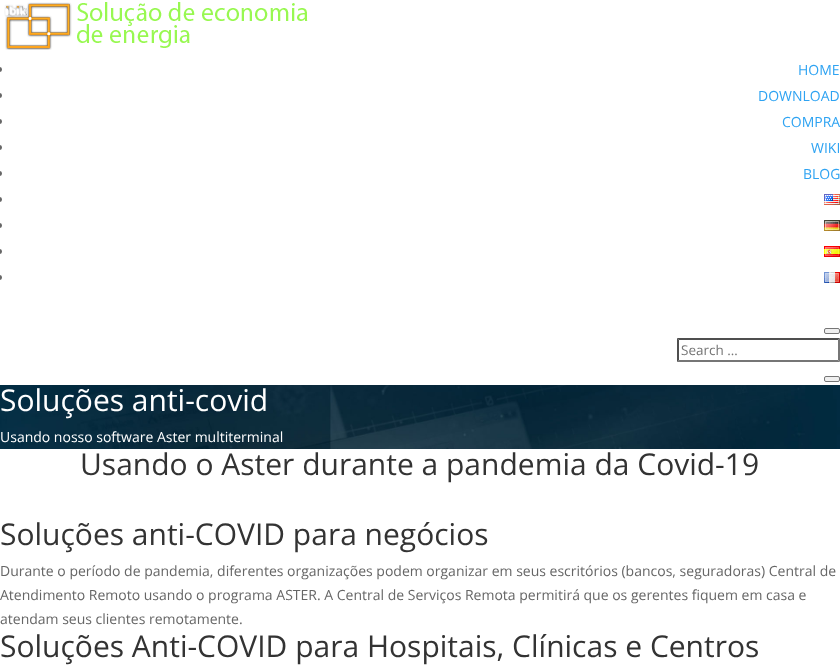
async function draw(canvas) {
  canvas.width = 840
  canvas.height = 668
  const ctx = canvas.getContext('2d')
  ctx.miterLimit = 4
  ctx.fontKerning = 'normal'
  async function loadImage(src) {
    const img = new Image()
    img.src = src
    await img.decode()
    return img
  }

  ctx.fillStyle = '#fff'
  ctx.fillRect(0, 0, 840, 668)
  ctx.drawImage(await loadImage('image0.png'), 4, 2, 304, 48)
  ctx.fillStyle = '#666'
  ctx.beginPath()
  ctx.arc(-0.5, 69.5, 2.5, 0, 2 * Math.PI)
  ctx.fill()
  ctx.font = '14px Open Sans'
  ctx.fillStyle = '#2ea3f2'
  ctx.fillText('HOME', 798, 75)
  ctx.fillStyle = '#666'
  ctx.beginPath()
  ctx.arc(-0.5, 95.5, 2.5, 0, 2 * Math.PI)
  ctx.fill()
  ctx.fillStyle = '#2ea3f2'
  ctx.fillText('DOWNLOAD', 758, 101)
  ctx.fillStyle = '#666'
  ctx.beginPath()
  ctx.arc(-0.5, 121.5, 2.5, 0, 2 * Math.PI)
  ctx.fill()
  ctx.fillStyle = '#2ea3f2'
  ctx.fillText('COMPRA', 782, 127)
  ctx.fillStyle = '#666'
  ctx.beginPath()
  ctx.arc(-0.5, 147.5, 2.5, 0, 2 * Math.PI)
  ctx.fill()
  ctx.fillStyle = '#2ea3f2'
  ctx.fillText('WIKI', 811, 153)
  ctx.fillStyle = '#666'
  ctx.beginPath()
  ctx.arc(-0.5, 173.5, 2.5, 0, 2 * Math.PI)
  ctx.fill()
  ctx.fillStyle = '#2ea3f2'
  ctx.fillText('BLOG', 803, 179)
  ctx.fillStyle = '#666'
  ctx.beginPath()
  ctx.arc(-0.5, 199.5, 2.5, 0, 2 * Math.PI)
  ctx.fill()
  ctx.drawImage(await loadImage('image1.png'), 824, 194, 16, 11)
  ctx.beginPath()
  ctx.arc(-0.5, 225.5, 2.5, 0, 2 * Math.PI)
  ctx.fill()
  ctx.drawImage(await loadImage('image2.png'), 824, 220, 16, 11)
  ctx.beginPath()
  ctx.arc(-0.5, 251.5, 2.5, 0, 2 * Math.PI)
  ctx.fill()
  ctx.drawImage(await loadImage('image3.png'), 824, 246, 16, 11)
  ctx.beginPath()
  ctx.arc(-0.5, 277.5, 2.5, 0, 2 * Math.PI)
  ctx.fill()
  ctx.drawImage(await loadImage('image4.png'), 824, 272, 16, 11)
  ctx.fillStyle = '#efefef'
  ctx.beginPath()
  ctx.roundRect(824.5, 328.5, 15, 5, 1.5)
  ctx.fill()
  ctx.strokeStyle = '#767676'
  ctx.stroke()
  ctx.fillStyle = '#4f4f4f'
  ctx.beginPath()
  ctx.moveTo(677, 338)
  ctx.lineTo(840, 338)
  ctx.lineTo(838, 340)
  ctx.lineTo(679, 340)
  ctx.closePath()
  ctx.fill()
  ctx.fillStyle = '#767676'
  ctx.beginPath()
  ctx.moveTo(840, 338)
  ctx.lineTo(840, 362)
  ctx.lineTo(838, 360)
  ctx.lineTo(838, 340)
  ctx.closePath()
  ctx.fill()
  ctx.beginPath()
  ctx.moveTo(840, 362)
  ctx.lineTo(677, 362)
  ctx.lineTo(679, 360)
  ctx.lineTo(838, 360)
  ctx.closePath()
  ctx.fill()
  ctx.fillStyle = '#4f4f4f'
  ctx.beginPath()
  ctx.moveTo(677, 362)
  ctx.lineTo(677, 338)
  ctx.lineTo(679, 340)
  ctx.lineTo(679, 360)
  ctx.closePath()
  ctx.fill()
  ctx.font = '13.5px Open Sans'
  ctx.fillStyle = '#757575'
  ctx.fillText('Search …', 681, 355)
  ctx.fillStyle = '#efefef'
  ctx.beginPath()
  ctx.roundRect(824.5, 376.5, 15, 5, 1.5)
  ctx.fill()
  ctx.stroke()
  ctx.drawImage(await loadImage('image5.png'), 0, 385, 840, 64)
  ctx.font = '30px Open Sans'
  ctx.fillStyle = '#fff'
  ctx.fillText('Soluções anti-covid', 0, 411)
  ctx.font = '14px Open Sans'
  ctx.fillText('Usando nosso software Aster multiterminal', 0, 442)
  ctx.font = '30px Open Sans'
  ctx.fillStyle = '#333'
  ctx.fillText('Usando o Aster durante a pandemia da Covid-19', 80, 475)
  ctx.fillText('Soluções anti-COVID para negócios', 0, 545)
  ctx.font = '14px Open Sans'
  ctx.fillStyle = '#666'
  ctx.fillText('Durante o período de pandemia, diferentes organizações podem organizar em seus escritórios (bancos, seguradoras) Central de', 0, 576)
  ctx.fillText('Atendimento Remoto usando o programa ASTER. A Central de Serviços Remota permitirá que os gerentes fiquem em casa e', 0, 600)
  ctx.fillText('atendam seus clientes remotamente.', 0, 624)
  ctx.font = '30px Open Sans'
  ctx.fillStyle = '#333'
  ctx.fillText('Soluções Anti-COVID para Hospitais, Clínicas e Centros', 0, 657)
}

draw(document.querySelector('canvas'))
